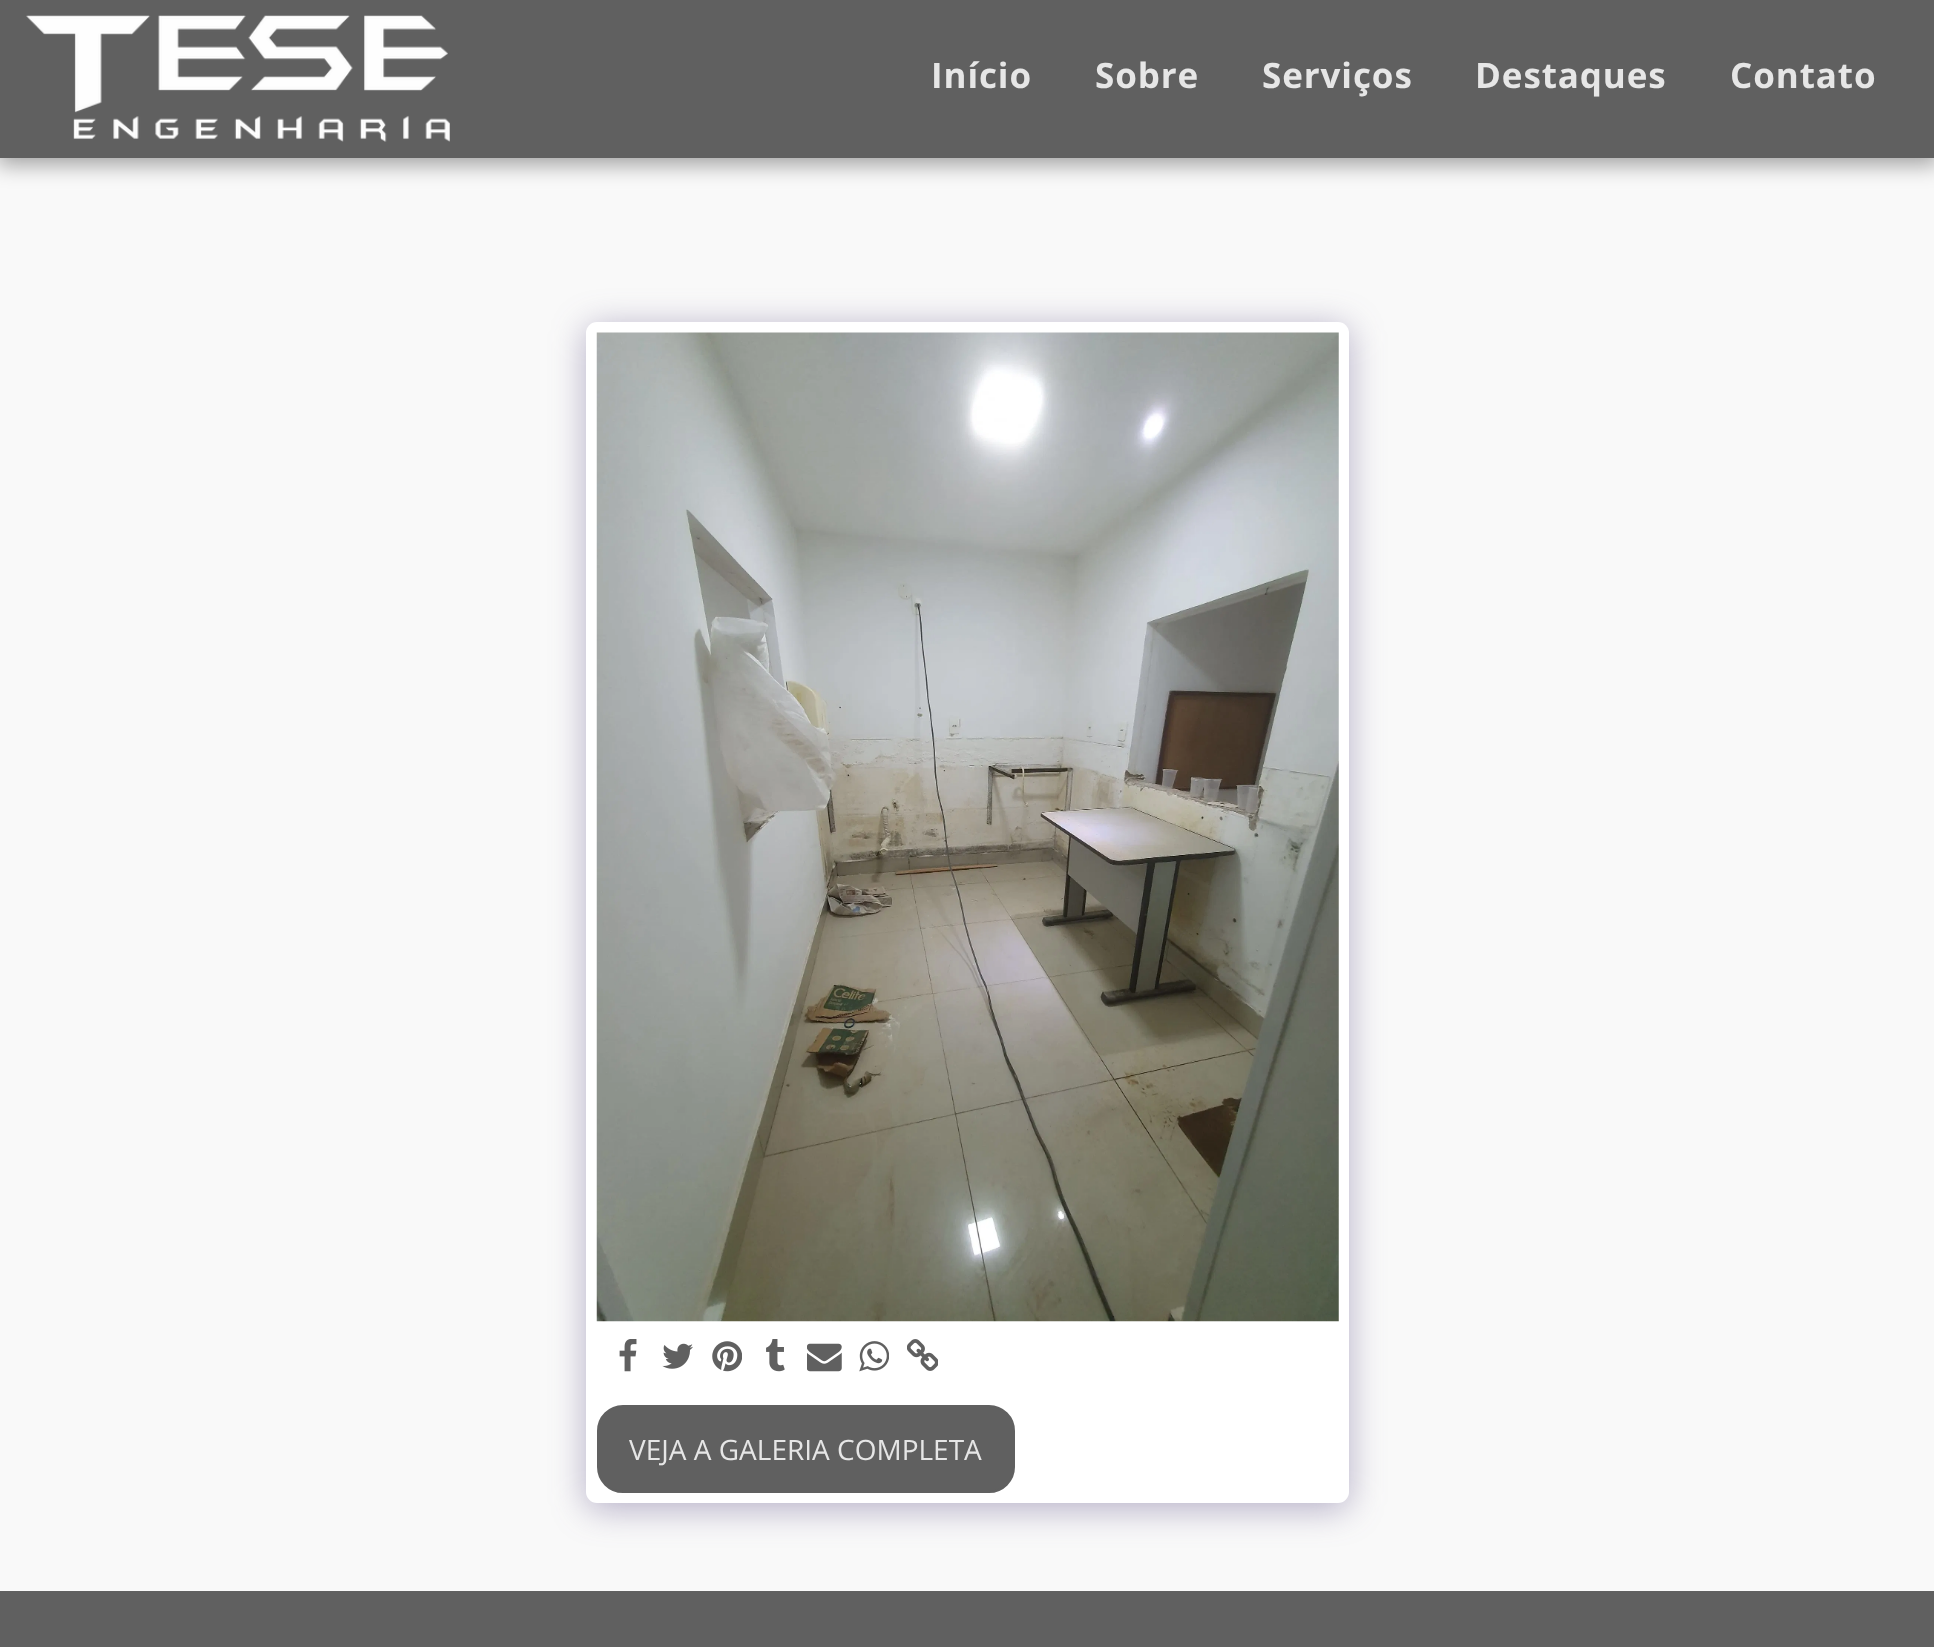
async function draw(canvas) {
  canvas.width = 1934
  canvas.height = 1647
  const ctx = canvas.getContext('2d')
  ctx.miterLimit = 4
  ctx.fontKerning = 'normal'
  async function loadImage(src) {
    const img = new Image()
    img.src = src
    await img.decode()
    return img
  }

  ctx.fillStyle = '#f9f9f9'
  ctx.fillRect(0, 0, 1934, 1647)
  ctx.fillStyle = '#00000059'
  ctx.filter = 'blur(10.5px)'
  ctx.beginPath()
  ctx.rect(-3, 0, 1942, 165)
  ctx.fill()
  ctx.filter = 'none'
  ctx.fillStyle = '#606060'
  ctx.fillRect(0, 0, 1934, 158)
  ctx.drawImage(await loadImage('image0.png'), 26, 15, 424, 127)
  ctx.letterSpacing = '0.9px'
  ctx.font = 'bold 35px Open Sans'
  ctx.fillStyle = '#e6e6e6'
  ctx.fillText('Início', 931, 88)
  ctx.fillText('Sobre', 1095, 88)
  ctx.fillText('Serviços', 1262, 88)
  ctx.fillText('Destaques', 1475, 88)
  ctx.fillText('Contato', 1730, 88)
  ctx.fillStyle = '#4d3f7a66'
  ctx.filter = 'blur(17.5px)'
  ctx.beginPath()
  ctx.roundRect(586, 327, 763, 1182, 11)
  ctx.fill()
  ctx.filter = 'none'
  ctx.fillStyle = '#fff'
  ctx.beginPath()
  ctx.roundRect(586, 322, 763, 1181, 11)
  ctx.fill()
  ctx.drawImage(await loadImage('image1.png'), 596, 332, 743, 990)
  ctx.drawImage(await loadImage('image2.png'), 619, 1339, 18, 33)
  ctx.drawImage(await loadImage('image3.png'), 662, 1343, 31, 26)
  ctx.drawImage(await loadImage('image4.png'), 712, 1341, 30, 31)
  ctx.drawImage(await loadImage('image5.png'), 766, 1339, 19, 33)
  ctx.drawImage(await loadImage('image6.png'), 807, 1343, 35, 29)
  ctx.drawImage(await loadImage('image7.png'), 859, 1341, 30, 31)
  ctx.drawImage(await loadImage('image8.png'), 907, 1339, 31, 32)
  ctx.fillStyle = '#606060'
  ctx.beginPath()
  ctx.roundRect(598, 1406, 416, 86, 25)
  ctx.fill()
  ctx.strokeStyle = '#606060'
  ctx.lineWidth = 2
  ctx.stroke()
  ctx.letterSpacing = '0px'
  ctx.font = '28px Open Sans'
  ctx.fillStyle = '#e6e6e6'
  ctx.fillText('VEJA A GALERIA COMPLETA', 629, 1460)
  ctx.fillStyle = '#606060'
  ctx.fillRect(0, 1591, 1934, 56)
}

draw(document.querySelector('canvas'))
